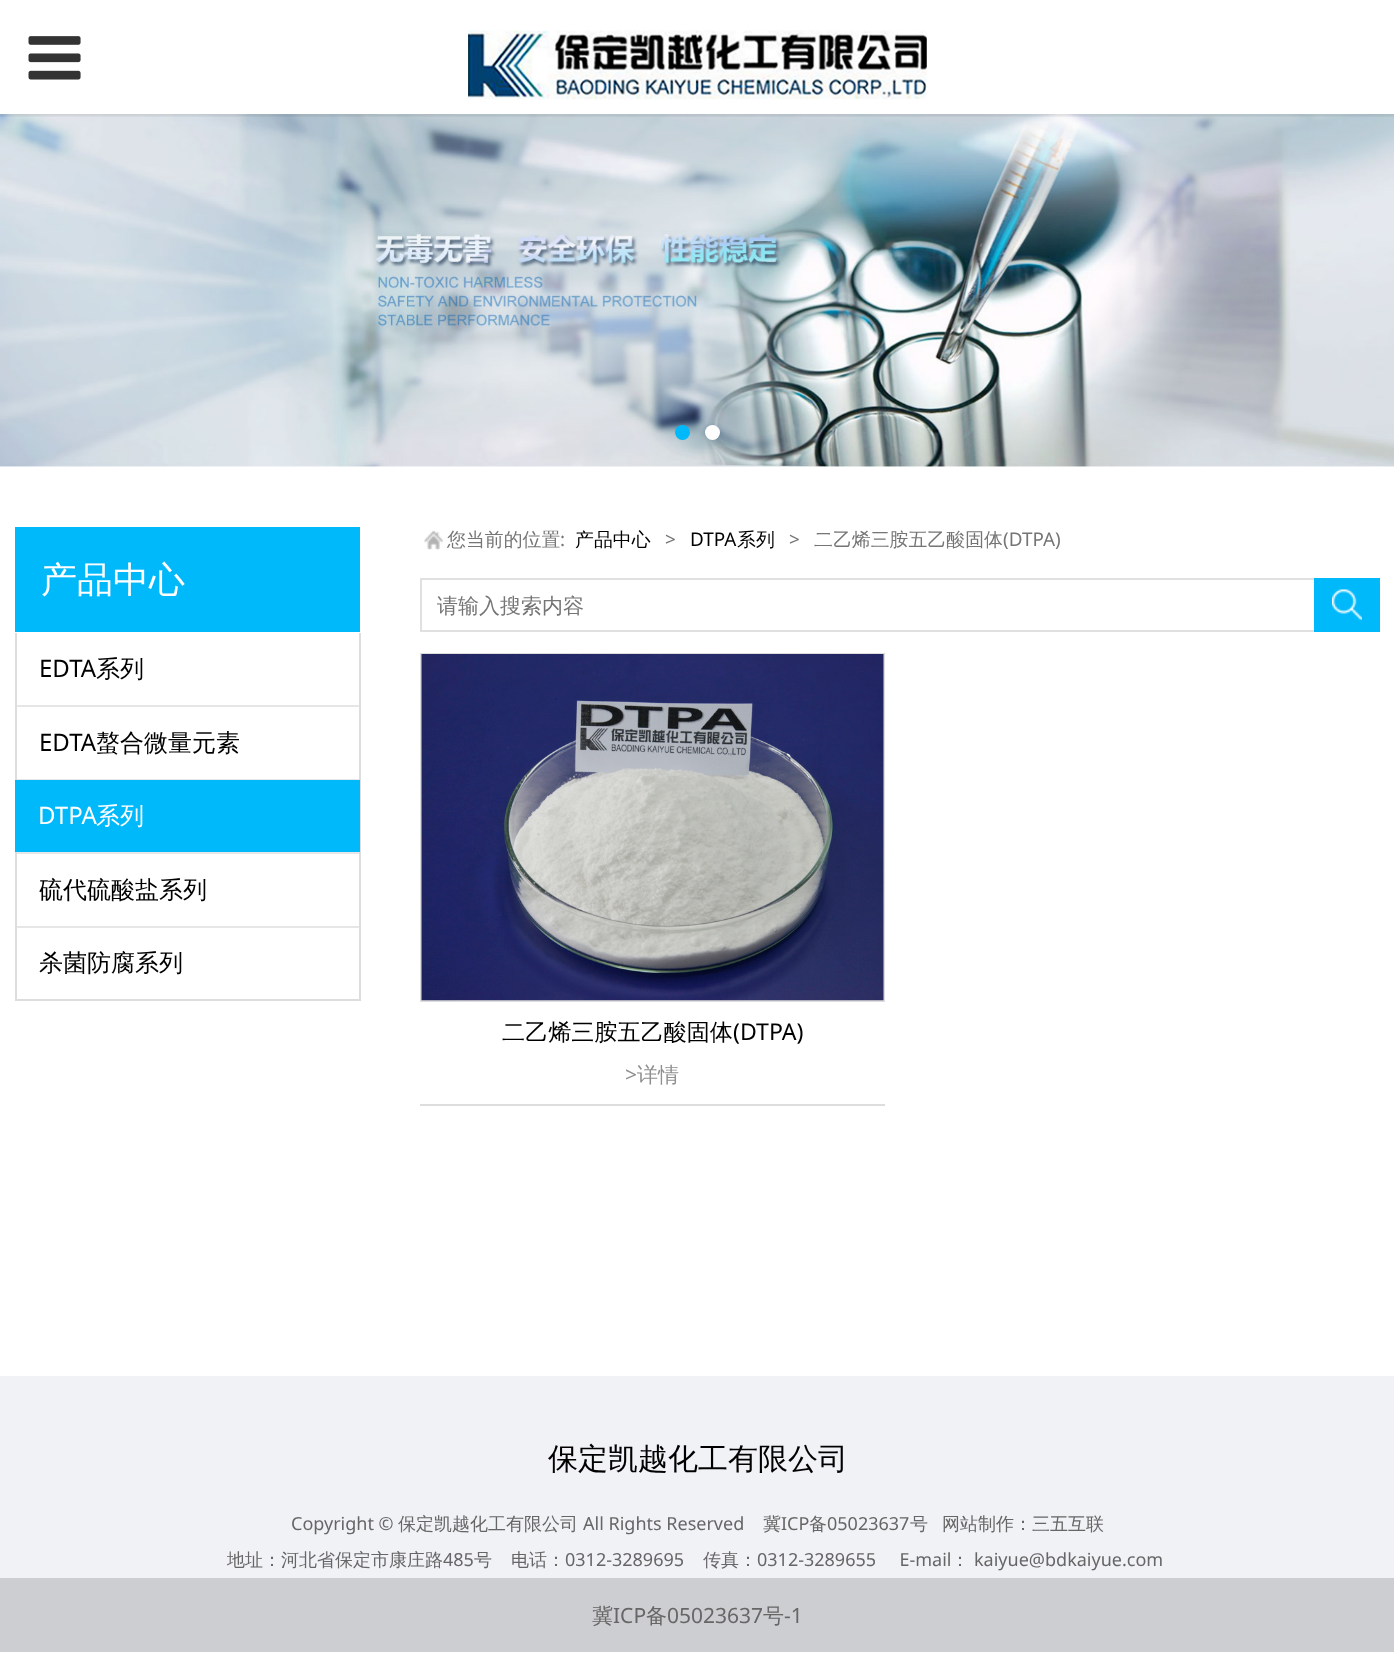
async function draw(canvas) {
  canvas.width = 1394
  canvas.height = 1660
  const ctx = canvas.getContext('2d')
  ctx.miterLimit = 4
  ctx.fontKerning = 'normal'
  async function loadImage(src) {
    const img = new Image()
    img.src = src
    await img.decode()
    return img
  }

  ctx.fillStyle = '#fff'
  ctx.fillRect(0, 0, 1394, 1660)
  ctx.drawImage(await loadImage('image2.png'), 0, 114, 1394, 353)
  ctx.save()
  ctx.beginPath()
  ctx.rect(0, 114, 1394, 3)
  ctx.clip()
  ctx.fillStyle = '#0000001a'
  ctx.filter = 'blur(1.5px)'
  ctx.beginPath()
  ctx.rect(0, 2, 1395, 114)
  ctx.fill()
  ctx.filter = 'none'
  ctx.restore()
  ctx.drawImage(await loadImage('image0.png'), 28, 36, 53, 44)
  ctx.drawImage(await loadImage('image1.png'), 468, 30, 459, 70)
  ctx.fillStyle = '#00b9fb'
  ctx.beginPath()
  ctx.arc(682.5, 432.5, 7.5, 0, 2 * Math.PI)
  ctx.fill()
  ctx.fillStyle = '#fff'
  ctx.beginPath()
  ctx.arc(712.5, 432.5, 7.5, 0, 2 * Math.PI)
  ctx.fill()
  ctx.fillStyle = '#00b9fb'
  ctx.fillRect(15, 527, 345, 105)
  ctx.font = '500 36px WenQuanYi Zen Hei'
  ctx.fillStyle = '#fff'
  ctx.fillText('产品中心', 41, 592)
  ctx.fillStyle = '#ddd'
  ctx.fillRect(359, 633, 2, 368)
  ctx.fillRect(15, 999, 345, 2)
  ctx.fillRect(15, 633, 2, 368)
  ctx.fillStyle = '#e6e6e6'
  ctx.fillRect(17, 705, 342, 2)
  ctx.font = '24px Noto Sans'
  ctx.fillStyle = '#000'
  ctx.fillText('EDTA', 39, 677)
  ctx.font = '500 24px WenQuanYi Zen Hei'
  ctx.fillText('系列', 96, 677)
  ctx.fillStyle = '#e6e6e6'
  ctx.fillRect(17, 779, 342, 1)
  ctx.font = '24px Noto Sans'
  ctx.fillStyle = '#000'
  ctx.fillText('EDTA', 39, 751)
  ctx.font = '500 24px WenQuanYi Zen Hei'
  ctx.fillText('螯合微量元素', 96, 751)
  ctx.fillStyle = '#e6e6e6'
  ctx.fillRect(17, 852, 342, 2)
  ctx.fillStyle = '#00b9fb'
  ctx.fillRect(15, 780, 345, 72)
  ctx.font = '24px Noto Sans'
  ctx.fillStyle = '#fff'
  ctx.fillText('DTPA', 38, 824)
  ctx.font = '500 24px WenQuanYi Zen Hei'
  ctx.fillText('系列', 96, 824)
  ctx.fillStyle = '#e6e6e6'
  ctx.fillRect(17, 926, 342, 2)
  ctx.fillStyle = '#000'
  ctx.fillText('硫代硫酸盐系列', 39, 898)
  ctx.fillText('杀菌防腐系列', 39, 971)
  ctx.drawImage(await loadImage('image3.png'), 424, 530, 19, 20)
  ctx.font = '500 18.9px WenQuanYi Zen Hei'
  ctx.fillStyle = '#757575'
  ctx.fillText('您当前的位置', 447, 546)
  ctx.font = '18.9px Noto Sans'
  ctx.fillText(':', 560, 546)
  ctx.font = '500 18.9px WenQuanYi Zen Hei'
  ctx.fillStyle = '#000'
  ctx.fillText('产品中心', 575, 546)
  ctx.font = '18.9px Noto Sans'
  ctx.fillStyle = '#757575'
  ctx.fillText('>', 665, 546)
  ctx.fillStyle = '#000'
  ctx.fillText('DTPA', 690, 546)
  ctx.font = '500 18.9px WenQuanYi Zen Hei'
  ctx.fillText('系列', 737, 546)
  ctx.font = '18.9px Noto Sans'
  ctx.fillStyle = '#757575'
  ctx.fillText('>', 789, 546)
  ctx.font = '500 18.9px WenQuanYi Zen Hei'
  ctx.fillText('二乙烯三胺五乙酸固体', 814, 546)
  ctx.font = '18.9px Noto Sans'
  ctx.fillText('(DTPA)', 1003, 546)
  ctx.strokeStyle = '#e0e0e0'
  ctx.lineWidth = 2
  ctx.strokeRect(421, 579, 958, 52)
  ctx.font = '500 21px WenQuanYi Zen Hei'
  ctx.fillText('请输入搜索内容', 437, 613)
  ctx.fillStyle = '#00b9fb'
  ctx.fillRect(1314, 578, 66, 54)
  ctx.drawImage(await loadImage('image4.png'), 1332, 589, 30, 31)
  ctx.fillStyle = '#ddd'
  ctx.fillRect(420, 1104, 465, 2)
  ctx.strokeStyle = '#ddd'
  ctx.strokeRect(421, 654, 463, 347)
  ctx.drawImage(await loadImage('image5.png'), 421, 654, 463, 347)
  ctx.font = '500 23.1px WenQuanYi Zen Hei'
  ctx.fillStyle = '#000'
  ctx.fillText('二乙烯三胺五乙酸固体', 502, 1040)
  ctx.font = '23.1px Noto Sans'
  ctx.fillText('(DTPA)', 733, 1040)
  ctx.font = '21px Noto Sans'
  ctx.fillStyle = '#8f8f8f'
  ctx.fillText('>', 625, 1082)
  ctx.font = '500 21px WenQuanYi Zen Hei'
  ctx.fillText('详情', 637, 1082)
  ctx.fillStyle = '#f1f2f6'
  ctx.fillRect(0, 1376, 1394, 202)
  ctx.font = '500 30px WenQuanYi Zen Hei'
  ctx.fillStyle = '#000'
  ctx.fillText('保定凯越化工有限公司', 548, 1469)
  ctx.font = '18px Noto Sans'
  ctx.fillStyle = '#666'
  ctx.fillText('Copyright ©', 291, 1530)
  ctx.font = '500 18px WenQuanYi Zen Hei'
  ctx.fillText('保定凯越化工有限公司', 398, 1530)
  ctx.font = '18px Noto Sans'
  ctx.fillText('All Rights Reserved', 583, 1530)
  ctx.font = '500 18px WenQuanYi Zen Hei'
  ctx.fillText('冀', 763, 1530)
  ctx.font = '18px Noto Sans'
  ctx.fillText('ICP', 781, 1530)
  ctx.font = '500 18px WenQuanYi Zen Hei'
  ctx.fillText('备', 809, 1530)
  ctx.font = '18px Noto Sans'
  ctx.fillText('05023637', 827, 1530)
  ctx.font = '500 18px WenQuanYi Zen Hei'
  ctx.fillText('号', 910, 1530)
  ctx.fillText('网站制作：三五互联', 942, 1530)
  ctx.fillText('地址：河北省保定市康庄路', 227, 1566)
  ctx.font = '18px Noto Sans'
  ctx.fillText('485', 443, 1566)
  ctx.font = '500 18px WenQuanYi Zen Hei'
  ctx.fillText('号', 474, 1566)
  ctx.fillText('电话：', 511, 1566)
  ctx.font = '18px Noto Sans'
  ctx.fillText('0312-3289695', 565, 1566)
  ctx.font = '500 18px WenQuanYi Zen Hei'
  ctx.fillText('传真：', 703, 1566)
  ctx.font = '18px Noto Sans'
  ctx.fillText('0312-3289655     E-mail', 757, 1566)
  ctx.font = '500 18px WenQuanYi Zen Hei'
  ctx.fillText('：', 951, 1566)
  ctx.font = '18px Noto Sans'
  ctx.fillText('kaiyue@bdkaiyue.com', 974, 1566)
  ctx.fillStyle = '#cdced1'
  ctx.fillRect(0, 1578, 1394, 74)
  ctx.font = '500 21px WenQuanYi Zen Hei'
  ctx.fillStyle = '#666'
  ctx.fillText('冀', 592, 1623)
  ctx.font = '21px Noto Sans'
  ctx.fillText('ICP', 613, 1623)
  ctx.font = '500 21px WenQuanYi Zen Hei'
  ctx.fillText('备', 646, 1623)
  ctx.font = '21px Noto Sans'
  ctx.fillText('05023637', 667, 1623)
  ctx.font = '500 21px WenQuanYi Zen Hei'
  ctx.fillText('号', 763, 1623)
  ctx.font = '21px Noto Sans'
  ctx.fillText('-1', 784, 1623)
}

draw(document.querySelector('canvas'))
